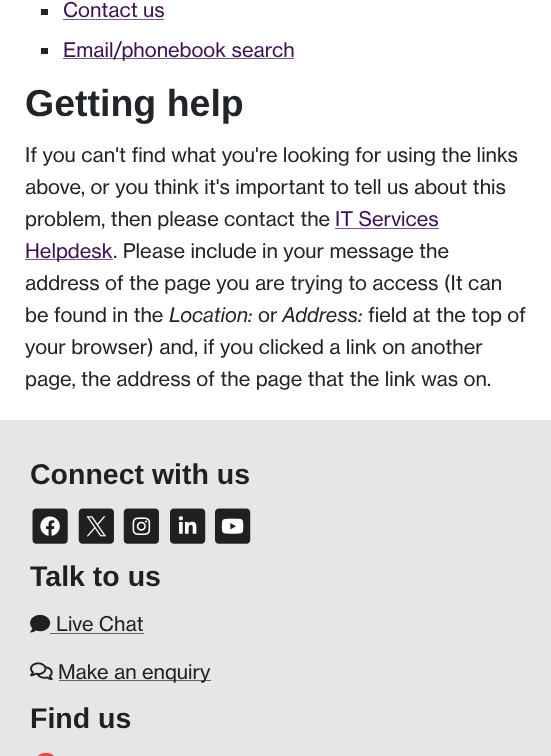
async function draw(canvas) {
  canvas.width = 551
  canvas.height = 756
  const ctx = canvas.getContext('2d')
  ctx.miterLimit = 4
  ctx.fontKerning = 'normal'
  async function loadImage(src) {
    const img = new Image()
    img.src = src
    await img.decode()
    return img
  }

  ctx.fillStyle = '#e6e6e6'
  ctx.fillRect(0, 0, 551, 756)
  ctx.fillStyle = '#fff'
  ctx.fillRect(0, 0, 551, 420)
  ctx.fillStyle = '#212529'
  ctx.fillRect(41, 9, 7, 6)
  ctx.font = '20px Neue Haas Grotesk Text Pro'
  ctx.fillStyle = '#3c1053'
  ctx.fillText('Contact us', 63, 17)
  ctx.fillStyle = '#775887'
  ctx.fillRect(63, 19, 101, 1)
  ctx.fillStyle = '#212529'
  ctx.fillRect(41, 48, 7, 6)
  ctx.fillStyle = '#775887'
  ctx.fillRect(63, 58, 231, 1)
  ctx.fillStyle = '#3c1053'
  ctx.fillText('Email/phonebook search', 63, 57)
  ctx.font = 'bold 37.5px Liberation Sans'
  ctx.fillStyle = '#212529'
  ctx.fillText('Getting help', 25, 116)
  ctx.font = '20px Neue Haas Grotesk Text Pro'
  ctx.fillText('If you can\'t find what you\'re looking for using the links', 25, 162)
  ctx.fillText('above, or you think it\'s important to tell us about this', 25, 194)
  ctx.fillText('problem, then please contact the', 25, 226)
  ctx.fillStyle = '#3c1053'
  ctx.fillText('IT Services', 335, 226)
  ctx.fillStyle = '#775887'
  ctx.fillRect(335, 228, 104, 1)
  ctx.fillRect(25, 259, 88, 1)
  ctx.fillStyle = '#3c1053'
  ctx.fillText('Helpdesk', 25, 258)
  ctx.fillStyle = '#212529'
  ctx.fillText('. Please include in your message the', 113, 258)
  ctx.fillText('address of the page you are trying to access (It can', 25, 290)
  ctx.fillText('be found in the', 25, 322)
  ctx.font = 'italic 20px Neue Haas Grotesk Text Pro'
  ctx.fillText('Location:', 169, 322)
  ctx.font = '20px Neue Haas Grotesk Text Pro'
  ctx.fillText('or', 258, 322)
  ctx.font = 'italic 20px Neue Haas Grotesk Text Pro'
  ctx.fillText('Address:', 282, 322)
  ctx.font = '20px Neue Haas Grotesk Text Pro'
  ctx.fillText('field at the top of', 368, 322)
  ctx.fillText('your browser) and, if you clicked a link on another', 25, 354)
  ctx.fillText('page, the address of the page that the link was on.', 25, 386)
  ctx.font = 'bold 28.5px Liberation Sans'
  ctx.fillStyle = '#202020'
  ctx.fillText('Connect with us', 30, 484)
  ctx.drawImage(await loadImage('image0.png'), 32, 508, 36, 36)
  ctx.drawImage(await loadImage('image1.png'), 40, 516, 20, 20)
  ctx.drawImage(await loadImage('image2.png'), 78, 508, 36, 36)
  ctx.drawImage(await loadImage('image3.png'), 86, 516, 20, 21)
  ctx.drawImage(await loadImage('image2.png'), 123, 508, 36, 36)
  ctx.drawImage(await loadImage('image4.png'), 132, 517, 19, 18)
  ctx.drawImage(await loadImage('image5.png'), 170, 508, 36, 36)
  ctx.drawImage(await loadImage('image6.png'), 178, 516, 19, 18)
  ctx.drawImage(await loadImage('image5.png'), 215, 508, 36, 36)
  ctx.drawImage(await loadImage('image7.png'), 221, 518, 23, 16)
  ctx.fillText('Talk to us', 30, 586)
  ctx.drawImage(await loadImage('image8.png'), 30, 614, 21, 19)
  ctx.font = '20px Neue Haas Grotesk Text Pro'
  ctx.fillText('Live Chat', 56, 631)
  ctx.fillStyle = '#636363'
  ctx.fillRect(50, 633, 94, 1)
  ctx.drawImage(await loadImage('image9.png'), 30, 662, 23, 18)
  ctx.fillRect(59, 680, 152, 1)
  ctx.fillStyle = '#202020'
  ctx.fillText('Make an enquiry', 58, 679)
  ctx.font = 'bold 28.5px Liberation Sans'
  ctx.fillText('Find us', 30, 728)
  ctx.drawImage(await loadImage('image10.png'), 37, 753, 17, 3)
}

draw(document.querySelector('canvas'))
